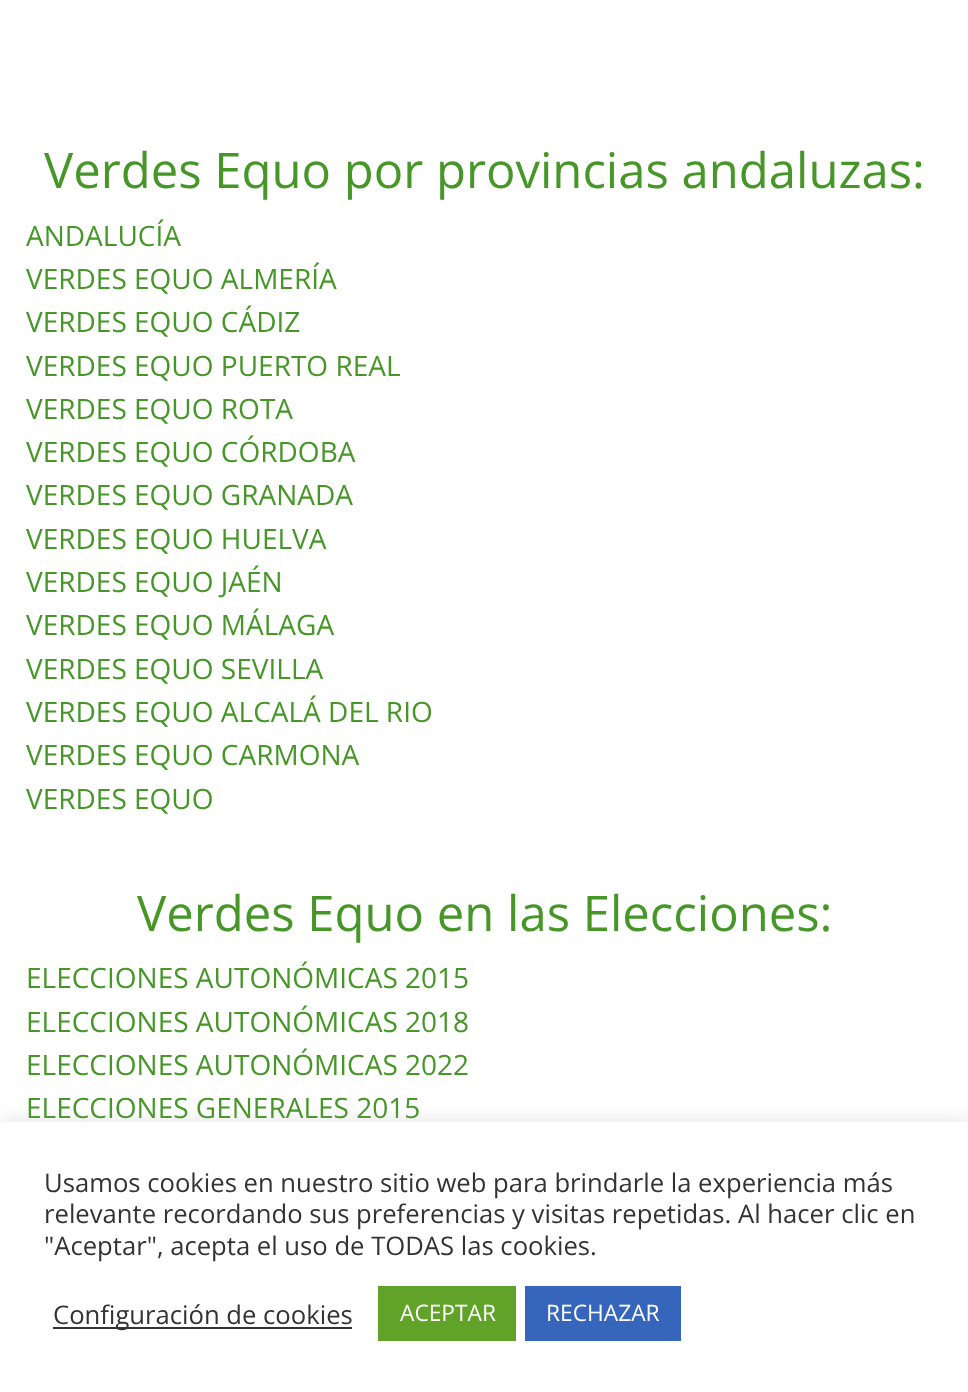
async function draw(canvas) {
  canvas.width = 968
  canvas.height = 1392
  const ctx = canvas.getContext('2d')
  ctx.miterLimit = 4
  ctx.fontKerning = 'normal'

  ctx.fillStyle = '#fff'
  ctx.fillRect(0, 0, 968, 1392)
  ctx.font = '49px Open Sans'
  ctx.fillStyle = '#469628'
  ctx.fillText('Verdes Equo por provincias andaluzas:', 44, 188)
  ctx.font = '28px Open Sans'
  ctx.fillText('ANDALUCÍA', 26, 246)
  ctx.fillText('VERDES EQUO ALMERÍA', 26, 289)
  ctx.fillText('VERDES EQUO CÁDIZ', 26, 332)
  ctx.fillText('VERDES EQUO PUERTO REAL', 26, 376)
  ctx.fillText('VERDES EQUO ROTA', 26, 419)
  ctx.fillText('VERDES EQUO CÓRDOBA', 26, 462)
  ctx.fillText('VERDES EQUO GRANADA', 26, 505)
  ctx.fillText('VERDES EQUO HUELVA', 26, 549)
  ctx.fillText('VERDES EQUO JAÉN', 26, 592)
  ctx.fillText('VERDES EQUO MÁLAGA', 26, 635)
  ctx.fillText('VERDES EQUO SEVILLA', 26, 679)
  ctx.fillText('VERDES EQUO ALCALÁ DEL RIO', 26, 722)
  ctx.fillText('VERDES EQUO CARMONA', 26, 765)
  ctx.fillText('VERDES EQUO', 26, 809)
  ctx.font = '49px Open Sans'
  ctx.fillText('Verdes Equo en las Elecciones:', 137, 931)
  ctx.font = '28px Open Sans'
  ctx.fillText('ELECCIONES AUTONÓMICAS 2015', 26, 988)
  ctx.fillText('ELECCIONES AUTONÓMICAS 2018', 26, 1032)
  ctx.fillText('ELECCIONES AUTONÓMICAS 2022', 26, 1075)
  ctx.fillText('ELECCIONES GENERALES 2015', 26, 1118)
  ctx.fillStyle = '#acabab4d'
  ctx.filter = 'blur(9px)'
  ctx.beginPath()
  ctx.rect(0, 1120, 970, 271)
  ctx.fill()
  ctx.filter = 'none'
  ctx.fillStyle = '#fff'
  ctx.fillRect(0, 1122, 968, 270)
  ctx.font = '25.65px Open Sans'
  ctx.fillStyle = '#333'
  ctx.fillText('Usamos cookies en nuestro sitio web para brindarle la experiencia más', 44, 1192)
  ctx.fillText('relevante recordando sus preferencias y visitas repetidas. Al hacer clic en', 44, 1223)
  ctx.fillText('"Aceptar", acepta el uso de TODAS las cookies.', 44, 1255)
  ctx.fillRect(53, 1327, 299, 2)
  ctx.fillText('Configuración de cookies', 53, 1324)
  ctx.fillStyle = '#61a229'
  ctx.fillRect(378, 1286, 138, 55)
  ctx.font = '22.75px Open Sans'
  ctx.fillStyle = '#fff'
  ctx.fillText('ACEPTAR', 400, 1321)
  ctx.fillStyle = '#3566bb'
  ctx.fillRect(525, 1286, 156, 55)
  ctx.fillStyle = '#fff'
  ctx.fillText('RECHAZAR', 546, 1321)
}

draw(document.querySelector('canvas'))
